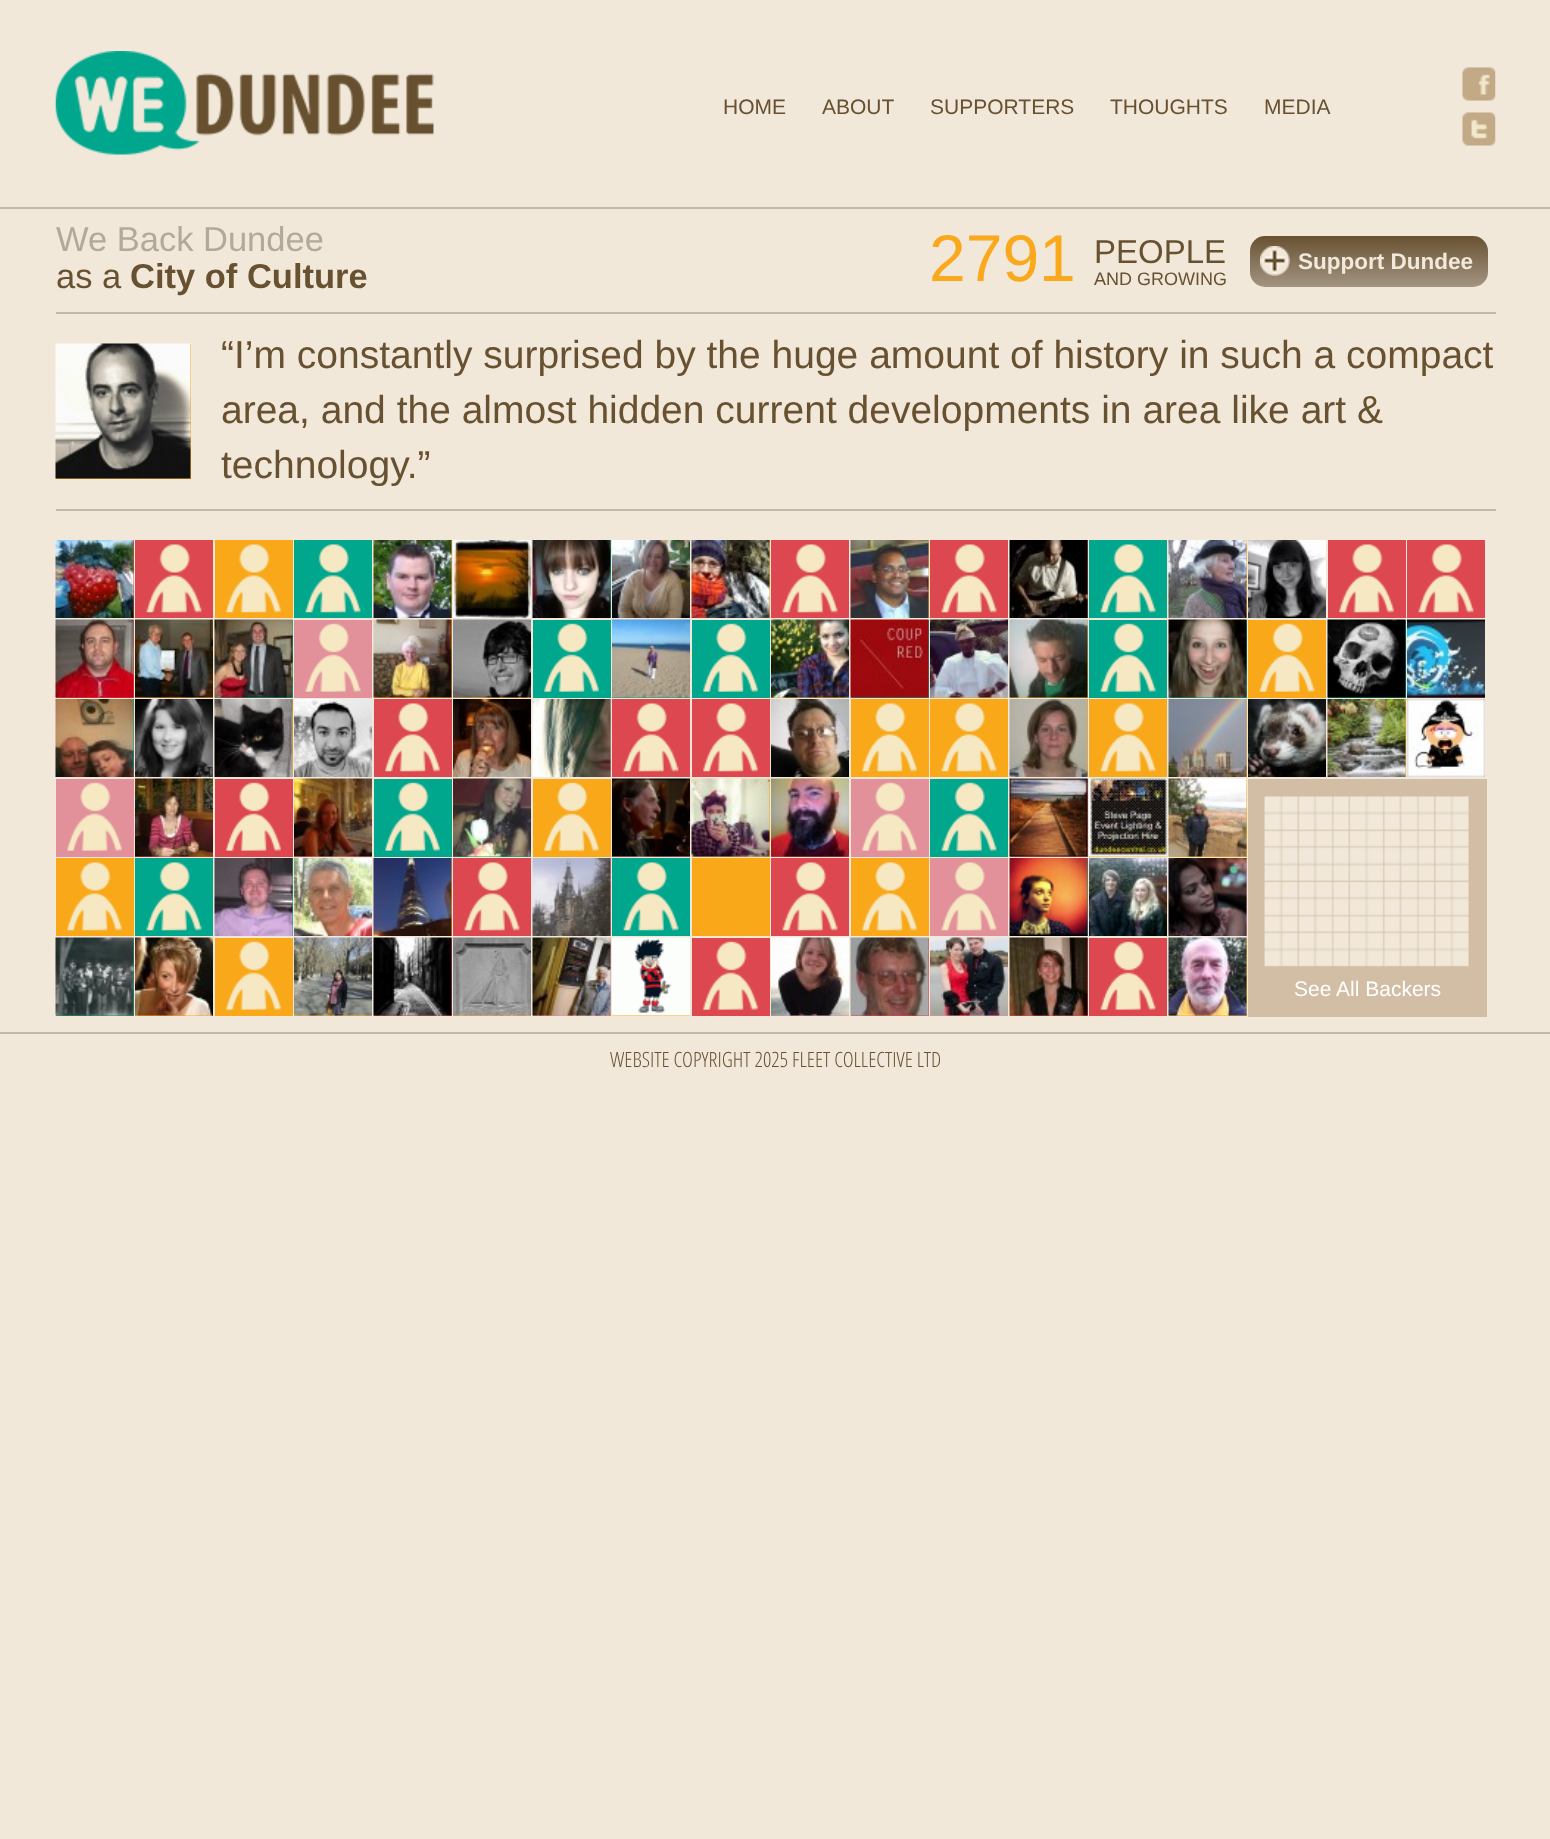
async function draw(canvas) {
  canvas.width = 1550
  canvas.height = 1839
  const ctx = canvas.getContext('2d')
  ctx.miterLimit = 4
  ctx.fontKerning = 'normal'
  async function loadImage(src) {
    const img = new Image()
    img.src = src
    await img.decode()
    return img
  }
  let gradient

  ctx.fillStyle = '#f1e8da'
  ctx.fillRect(0, 0, 1550, 1839)
  ctx.fillStyle = '#c2b9ad'
  ctx.fillRect(0, 207, 1550, 2)
  ctx.drawImage(await loadImage('image0.png'), 55, 51, 379, 104)
  ctx.drawImage(await loadImage('image1.png'), 1462, 67, 34, 34)
  ctx.font = '21px Liberation Sans'
  ctx.fillStyle = '#685131'
  ctx.fillText('HOME', 723, 114)
  ctx.fillText('ABOUT', 822, 114)
  ctx.fillText('SUPPORTERS', 930, 114)
  ctx.fillText('THOUGHTS', 1110, 114)
  ctx.fillText('MEDIA', 1264, 114)
  ctx.drawImage(await loadImage('image2.png'), 1462, 112, 34, 34)
  ctx.font = '34.5px Liberation Sans'
  ctx.fillStyle = '#b4a89a'
  ctx.fillText('We Back Dundee', 56, 251)
  ctx.fillStyle = '#685131'
  ctx.fillText('as a', 56, 288)
  ctx.font = 'bold 34.5px Liberation Sans'
  ctx.fillText('City of Culture', 130, 288)
  ctx.font = '66px Liberation Sans'
  ctx.fillStyle = '#f9a91b'
  ctx.fillText('2791', 929, 281)
  ctx.font = '33px Liberation Sans'
  ctx.fillStyle = '#685131'
  ctx.fillText('PEOPLE', 1094, 263)
  ctx.font = '18px Liberation Sans'
  ctx.fillText('AND GROWING', 1094, 285)
  gradient = ctx.createLinearGradient(1369, 236, 1369, 287)
  gradient.addColorStop(0, '#685131')
  gradient.addColorStop(1, '#a39582')
  ctx.fillStyle = gradient
  ctx.beginPath()
  ctx.roundRect(1250, 236, 238, 51, 15)
  ctx.fill()
  ctx.drawImage(await loadImage('image3.png'), 1260, 246, 30, 30)
  ctx.font = 'bold 22.5px Liberation Sans'
  ctx.fillStyle = '#f2e9da'
  ctx.fillText('Support Dundee', 1298, 269)
  ctx.fillStyle = '#c2b9ad'
  ctx.fillRect(56, 312, 1440, 2)
  ctx.fillStyle = '#f9a81a'
  ctx.fillRect(56, 344, 135, 135)
  ctx.drawImage(await loadImage('image4.png'), 55, 343, 136, 136)
  ctx.font = '39px Liberation Sans'
  ctx.fillStyle = '#685131'
  ctx.fillText('“I’m constantly surprised by the huge amount of history in such a compact', 221, 368)
  ctx.fillText('area, and the almost hidden current developments in area like art &', 221, 423)
  ctx.fillText('technology.”', 221, 478)
  ctx.fillStyle = '#c2b9ad'
  ctx.fillRect(56, 509, 1440, 2)
  ctx.fillStyle = '#dd4850'
  ctx.fillRect(133, 540, 1, 78)
  ctx.drawImage(await loadImage('image5.png'), 55, 540, 79, 78)
  ctx.fillRect(135, 540, 78, 78)
  ctx.drawImage(await loadImage('image6.png'), 146, 544, 56, 69)
  ctx.fillStyle = '#f9a81a'
  ctx.fillRect(215, 540, 78, 78)
  ctx.drawImage(await loadImage('image7.png'), 226, 544, 55, 69)
  ctx.fillStyle = '#00a78c'
  ctx.fillRect(294, 540, 78, 78)
  ctx.drawImage(await loadImage('image8.png'), 305, 544, 56, 69)
  ctx.fillStyle = '#f9a81a'
  ctx.fillRect(451, 540, 1, 78)
  ctx.drawImage(await loadImage('image9.png'), 373, 540, 79, 78)
  ctx.drawImage(await loadImage('image10.png'), 453, 540, 78, 78)
  ctx.fillStyle = '#00a78c'
  ctx.fillRect(610, 540, 1, 78)
  ctx.drawImage(await loadImage('image11.png'), 532, 540, 79, 78)
  ctx.drawImage(await loadImage('image12.png'), 612, 540, 78, 78)
  ctx.fillStyle = '#f9a81a'
  ctx.fillRect(769, 540, 1, 78)
  ctx.drawImage(await loadImage('image13.png'), 691, 540, 79, 78)
  ctx.fillStyle = '#dd4850'
  ctx.fillRect(771, 540, 78, 78)
  ctx.drawImage(await loadImage('image14.png'), 782, 544, 56, 69)
  ctx.fillStyle = '#f9a81a'
  ctx.fillRect(928, 540, 1, 78)
  ctx.drawImage(await loadImage('image15.png'), 850, 540, 79, 78)
  ctx.fillStyle = '#dd4850'
  ctx.fillRect(930, 540, 78, 78)
  ctx.drawImage(await loadImage('image6.png'), 941, 544, 56, 69)
  ctx.fillRect(1087, 540, 1, 78)
  ctx.drawImage(await loadImage('image16.png'), 1009, 540, 79, 78)
  ctx.fillStyle = '#00a78c'
  ctx.fillRect(1089, 540, 78, 78)
  ctx.drawImage(await loadImage('image17.png'), 1100, 544, 56, 69)
  ctx.fillStyle = '#f9a81a'
  ctx.fillRect(1246, 540, 1, 78)
  ctx.drawImage(await loadImage('image18.png'), 1168, 540, 79, 78)
  ctx.drawImage(await loadImage('image19.png'), 1248, 540, 78, 78)
  ctx.fillStyle = '#dd4850'
  ctx.fillRect(1328, 540, 78, 78)
  ctx.drawImage(await loadImage('image20.png'), 1339, 544, 55, 69)
  ctx.fillRect(1407, 540, 78, 78)
  ctx.drawImage(await loadImage('image6.png'), 1418, 544, 56, 69)
  ctx.fillRect(56, 620, 78, 78)
  ctx.drawImage(await loadImage('image21.png'), 55, 619, 79, 79)
  ctx.fillStyle = '#f9a81a'
  ctx.fillRect(135, 697, 78, 1)
  ctx.drawImage(await loadImage('image22.png'), 135, 619, 78, 79)
  ctx.fillStyle = '#00a78c'
  ctx.fillRect(215, 620, 78, 78)
  ctx.drawImage(await loadImage('image23.png'), 214, 619, 79, 79)
  ctx.fillStyle = '#e2919a'
  ctx.fillRect(294, 620, 78, 78)
  ctx.drawImage(await loadImage('image24.png'), 305, 623, 56, 69)
  ctx.fillStyle = '#f9a81a'
  ctx.fillRect(374, 620, 78, 78)
  ctx.drawImage(await loadImage('image25.png'), 373, 619, 79, 79)
  ctx.fillRect(453, 697, 78, 1)
  ctx.drawImage(await loadImage('image26.png'), 453, 619, 78, 79)
  ctx.fillStyle = '#00a78c'
  ctx.fillRect(533, 620, 78, 78)
  ctx.drawImage(await loadImage('image27.png'), 544, 623, 55, 69)
  ctx.fillRect(612, 697, 78, 1)
  ctx.drawImage(await loadImage('image28.png'), 612, 619, 78, 79)
  ctx.fillRect(692, 620, 78, 78)
  ctx.drawImage(await loadImage('image27.png'), 703, 623, 55, 69)
  ctx.fillStyle = '#f9a81a'
  ctx.fillRect(771, 697, 78, 1)
  ctx.drawImage(await loadImage('image29.png'), 771, 619, 78, 79)
  ctx.fillStyle = '#00a78c'
  ctx.fillRect(851, 620, 78, 78)
  ctx.drawImage(await loadImage('image30.png'), 850, 619, 79, 79)
  ctx.fillStyle = '#f9a81a'
  ctx.fillRect(930, 697, 78, 1)
  ctx.drawImage(await loadImage('image31.png'), 930, 619, 78, 79)
  ctx.fillRect(1010, 620, 78, 78)
  ctx.drawImage(await loadImage('image32.png'), 1009, 619, 79, 79)
  ctx.fillStyle = '#00a78c'
  ctx.fillRect(1089, 620, 78, 78)
  ctx.drawImage(await loadImage('image33.png'), 1100, 623, 56, 69)
  ctx.fillRect(1169, 620, 78, 78)
  ctx.drawImage(await loadImage('image34.png'), 1168, 619, 79, 79)
  ctx.fillStyle = '#f9a81a'
  ctx.fillRect(1248, 620, 78, 78)
  ctx.drawImage(await loadImage('image35.png'), 1259, 623, 56, 69)
  ctx.fillStyle = '#00a78c'
  ctx.fillRect(1328, 620, 78, 78)
  ctx.drawImage(await loadImage('image36.png'), 1327, 619, 79, 79)
  ctx.fillStyle = '#dd4850'
  ctx.fillRect(1407, 697, 78, 1)
  ctx.drawImage(await loadImage('image37.png'), 1407, 619, 78, 79)
  ctx.fillStyle = '#00a78c'
  ctx.fillRect(133, 699, 1, 78)
  ctx.drawImage(await loadImage('image38.png'), 55, 699, 79, 78)
  ctx.drawImage(await loadImage('image39.png'), 135, 699, 78, 78)
  ctx.fillStyle = '#f9a81a'
  ctx.fillRect(215, 699, 78, 78)
  ctx.drawImage(await loadImage('image40.png'), 214, 699, 79, 78)
  ctx.drawImage(await loadImage('image41.png'), 294, 699, 78, 78)
  ctx.fillStyle = '#dd4850'
  ctx.fillRect(374, 699, 78, 78)
  ctx.drawImage(await loadImage('image42.png'), 385, 703, 55, 69)
  ctx.drawImage(await loadImage('image43.png'), 453, 699, 78, 78)
  ctx.fillStyle = '#e2919a'
  ctx.fillRect(610, 699, 1, 78)
  ctx.drawImage(await loadImage('image44.png'), 532, 699, 79, 78)
  ctx.fillStyle = '#dd4850'
  ctx.fillRect(612, 699, 78, 78)
  ctx.drawImage(await loadImage('image45.png'), 623, 703, 56, 69)
  ctx.fillRect(692, 699, 78, 78)
  ctx.drawImage(await loadImage('image46.png'), 703, 703, 55, 69)
  ctx.drawImage(await loadImage('image47.png'), 771, 699, 78, 78)
  ctx.fillStyle = '#f9a81a'
  ctx.fillRect(851, 699, 78, 78)
  ctx.drawImage(await loadImage('image48.png'), 862, 703, 55, 69)
  ctx.fillRect(930, 699, 78, 78)
  ctx.drawImage(await loadImage('image49.png'), 941, 703, 56, 69)
  ctx.fillRect(1087, 699, 1, 78)
  ctx.drawImage(await loadImage('image50.png'), 1009, 699, 79, 78)
  ctx.fillRect(1089, 699, 78, 78)
  ctx.drawImage(await loadImage('image49.png'), 1100, 703, 56, 69)
  ctx.fillRect(1246, 699, 1, 78)
  ctx.drawImage(await loadImage('image51.png'), 1168, 699, 79, 78)
  ctx.drawImage(await loadImage('image52.png'), 1248, 699, 78, 78)
  ctx.fillRect(1405, 699, 1, 78)
  ctx.drawImage(await loadImage('image53.png'), 1327, 699, 79, 78)
  ctx.drawImage(await loadImage('image54.png'), 1407, 699, 78, 78)
  ctx.fillStyle = '#e2919a'
  ctx.fillRect(56, 779, 78, 78)
  ctx.drawImage(await loadImage('image55.png'), 67, 782, 55, 69)
  ctx.fillStyle = '#dd4850'
  ctx.fillRect(135, 856, 78, 1)
  ctx.drawImage(await loadImage('image56.png'), 135, 778, 78, 79)
  ctx.fillRect(215, 779, 78, 78)
  ctx.drawImage(await loadImage('image57.png'), 226, 782, 55, 69)
  ctx.fillStyle = '#e2919a'
  ctx.fillRect(294, 856, 78, 1)
  ctx.drawImage(await loadImage('image58.png'), 294, 778, 78, 79)
  ctx.fillStyle = '#00a78c'
  ctx.fillRect(374, 779, 78, 78)
  ctx.drawImage(await loadImage('image59.png'), 385, 782, 55, 69)
  ctx.fillRect(453, 856, 78, 1)
  ctx.drawImage(await loadImage('image60.png'), 453, 778, 78, 79)
  ctx.fillStyle = '#f9a81a'
  ctx.fillRect(533, 779, 78, 78)
  ctx.drawImage(await loadImage('image61.png'), 544, 782, 55, 69)
  ctx.fillStyle = '#e2919a'
  ctx.fillRect(612, 856, 78, 1)
  ctx.drawImage(await loadImage('image62.png'), 612, 778, 78, 79)
  ctx.fillStyle = '#f9a81a'
  ctx.fillRect(692, 779, 78, 78)
  ctx.drawImage(await loadImage('image63.png'), 691, 778, 79, 79)
  ctx.fillStyle = '#dd4850'
  ctx.fillRect(771, 856, 78, 1)
  ctx.drawImage(await loadImage('image64.png'), 771, 778, 78, 79)
  ctx.fillStyle = '#e2919a'
  ctx.fillRect(851, 779, 78, 78)
  ctx.drawImage(await loadImage('image55.png'), 862, 782, 55, 69)
  ctx.fillStyle = '#00a78c'
  ctx.fillRect(930, 779, 78, 78)
  ctx.drawImage(await loadImage('image65.png'), 941, 782, 56, 69)
  ctx.fillStyle = '#dd4850'
  ctx.fillRect(1010, 779, 78, 78)
  ctx.drawImage(await loadImage('image66.png'), 1009, 778, 79, 79)
  ctx.fillStyle = '#f9a81a'
  ctx.fillRect(1089, 856, 78, 1)
  ctx.drawImage(await loadImage('image67.png'), 1089, 778, 78, 79)
  ctx.fillRect(1169, 779, 78, 78)
  ctx.drawImage(await loadImage('image68.png'), 1168, 778, 79, 79)
  ctx.fillRect(56, 858, 78, 78)
  ctx.drawImage(await loadImage('image48.png'), 67, 862, 55, 69)
  ctx.fillStyle = '#00a78c'
  ctx.fillRect(135, 858, 78, 78)
  ctx.drawImage(await loadImage('image69.png'), 146, 862, 56, 69)
  ctx.fillRect(292, 858, 1, 78)
  ctx.drawImage(await loadImage('image70.png'), 214, 858, 79, 78)
  ctx.drawImage(await loadImage('image71.png'), 294, 858, 78, 78)
  ctx.fillStyle = '#f9a81a'
  ctx.fillRect(451, 858, 1, 78)
  ctx.drawImage(await loadImage('image72.png'), 373, 858, 79, 78)
  ctx.fillStyle = '#dd4850'
  ctx.fillRect(453, 858, 78, 78)
  ctx.drawImage(await loadImage('image45.png'), 464, 862, 56, 69)
  ctx.fillStyle = '#e2919a'
  ctx.fillRect(610, 858, 1, 78)
  ctx.drawImage(await loadImage('image73.png'), 532, 858, 79, 78)
  ctx.fillStyle = '#00a78c'
  ctx.fillRect(612, 858, 78, 78)
  ctx.drawImage(await loadImage('image69.png'), 623, 862, 56, 69)
  ctx.fillStyle = '#f9a81a'
  ctx.fillRect(692, 858, 78, 78)
  ctx.fillStyle = '#dd4850'
  ctx.fillRect(771, 858, 78, 78)
  ctx.drawImage(await loadImage('image74.png'), 782, 862, 56, 69)
  ctx.fillStyle = '#f9a81a'
  ctx.fillRect(851, 858, 78, 78)
  ctx.drawImage(await loadImage('image48.png'), 862, 862, 55, 69)
  ctx.fillStyle = '#e2919a'
  ctx.fillRect(930, 858, 78, 78)
  ctx.drawImage(await loadImage('image75.png'), 941, 862, 56, 69)
  ctx.fillStyle = '#00a78c'
  ctx.fillRect(1087, 858, 1, 78)
  ctx.drawImage(await loadImage('image76.png'), 1009, 858, 79, 78)
  ctx.drawImage(await loadImage('image77.png'), 1089, 858, 78, 78)
  ctx.fillStyle = '#e2919a'
  ctx.fillRect(1246, 858, 1, 78)
  ctx.drawImage(await loadImage('image78.png'), 1168, 858, 79, 78)
  ctx.fillStyle = '#00a78c'
  ctx.fillRect(56, 938, 78, 78)
  ctx.drawImage(await loadImage('image79.png'), 55, 937, 79, 79)
  ctx.fillStyle = '#f9a81a'
  ctx.fillRect(135, 1015, 78, 1)
  ctx.drawImage(await loadImage('image80.png'), 135, 937, 78, 79)
  ctx.fillRect(215, 938, 78, 78)
  ctx.drawImage(await loadImage('image81.png'), 226, 941, 55, 69)
  ctx.fillRect(294, 1015, 78, 1)
  ctx.drawImage(await loadImage('image82.png'), 294, 937, 78, 79)
  ctx.fillStyle = '#dd4850'
  ctx.fillRect(374, 938, 78, 78)
  ctx.drawImage(await loadImage('image83.png'), 373, 937, 79, 79)
  ctx.fillStyle = '#f9a81a'
  ctx.fillRect(453, 1015, 78, 1)
  ctx.drawImage(await loadImage('image84.png'), 453, 937, 78, 79)
  ctx.fillStyle = '#e2919a'
  ctx.fillRect(533, 938, 78, 78)
  ctx.drawImage(await loadImage('image85.png'), 532, 937, 79, 79)
  ctx.fillStyle = '#f9a81a'
  ctx.fillRect(612, 1015, 78, 1)
  ctx.drawImage(await loadImage('image86.png'), 612, 937, 78, 79)
  ctx.fillStyle = '#dd4850'
  ctx.fillRect(692, 938, 78, 78)
  ctx.drawImage(await loadImage('image87.png'), 703, 941, 55, 69)
  ctx.fillStyle = '#e2919a'
  ctx.fillRect(771, 1015, 78, 1)
  ctx.drawImage(await loadImage('image88.png'), 771, 937, 78, 79)
  ctx.fillStyle = '#dd4850'
  ctx.fillRect(851, 938, 78, 78)
  ctx.drawImage(await loadImage('image89.png'), 850, 937, 79, 79)
  ctx.fillStyle = '#e2919a'
  ctx.fillRect(930, 1015, 78, 1)
  ctx.drawImage(await loadImage('image90.png'), 930, 937, 78, 79)
  ctx.fillStyle = '#dd4850'
  ctx.fillRect(1010, 938, 78, 78)
  ctx.drawImage(await loadImage('image91.png'), 1009, 937, 79, 79)
  ctx.fillRect(1089, 938, 78, 78)
  ctx.drawImage(await loadImage('image92.png'), 1100, 941, 56, 69)
  ctx.fillStyle = '#f9a81a'
  ctx.fillRect(1169, 938, 78, 78)
  ctx.drawImage(await loadImage('image93.png'), 1168, 937, 79, 79)
  ctx.fillStyle = '#d2bea4'
  ctx.fillRect(1248, 779, 239, 238)
  ctx.drawImage(await loadImage('image94.png'), 1264, 796, 205, 171)
  ctx.font = '21px Liberation Sans'
  ctx.fillStyle = '#fff'
  ctx.fillText('See All Backers', 1294, 996)
  ctx.fillStyle = '#c2b9ad'
  ctx.fillRect(0, 1032, 1550, 2)
  ctx.font = '300 21px Open Sans'
  ctx.fillStyle = '#685131'
  ctx.fillText('WEBSITE COPYRIGHT 2025 FLEET COLLECTIVE LTD', 610, 1067)
}

draw(document.querySelector('canvas'))
